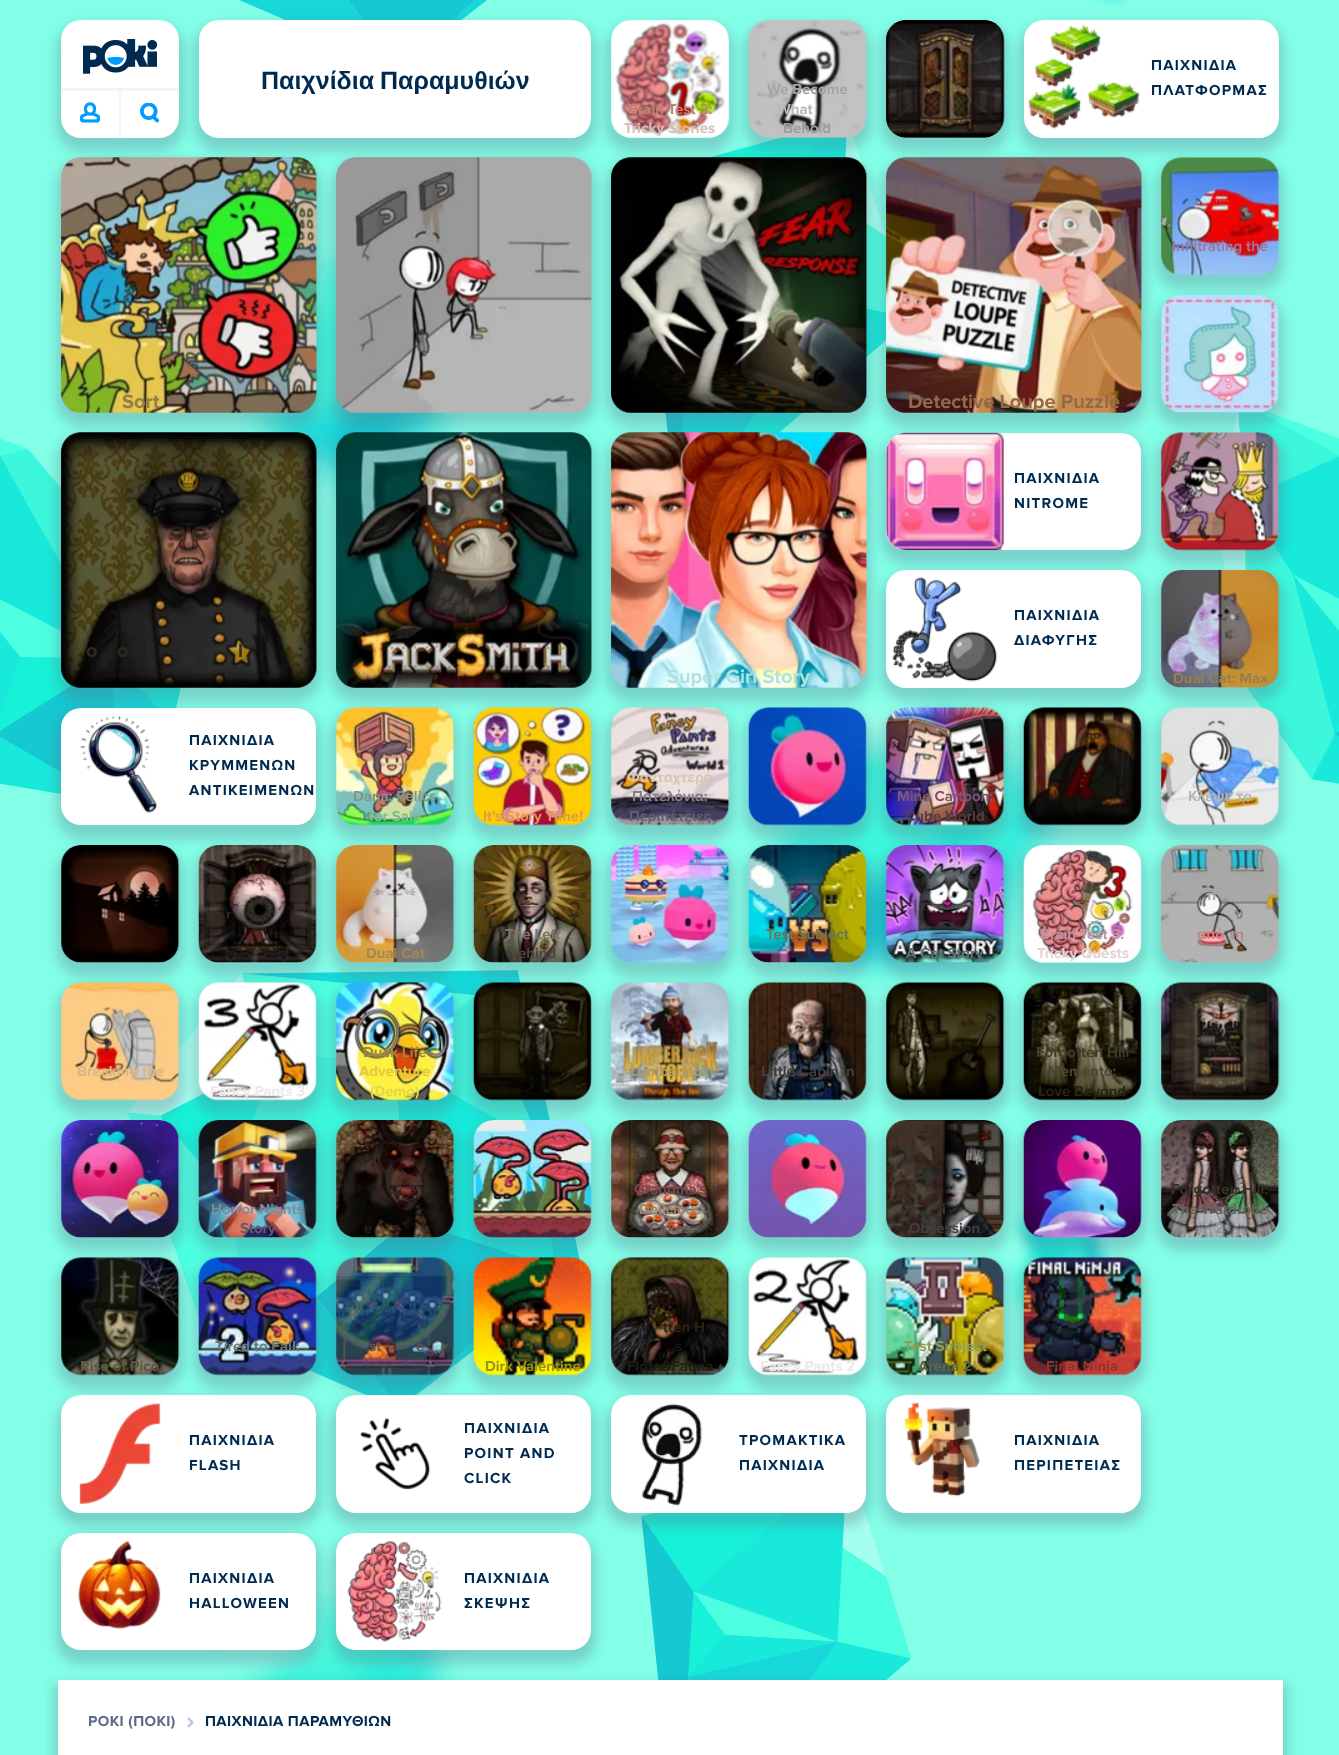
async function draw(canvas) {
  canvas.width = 1339
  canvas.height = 1755
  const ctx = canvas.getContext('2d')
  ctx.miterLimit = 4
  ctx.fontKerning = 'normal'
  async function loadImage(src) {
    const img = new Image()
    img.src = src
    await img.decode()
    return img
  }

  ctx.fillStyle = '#83ffe7'
  ctx.fillRect(0, 0, 1339, 1755)
  ctx.drawImage(await loadImage('image0.png'), 0, 0, 1339, 1680)
  ctx.fillStyle = '#5d6b844d'
  ctx.filter = 'blur(6px)'
  ctx.beginPath()
  ctx.roundRect(194, 24, 402, 127, 25)
  ctx.fill()
  ctx.filter = 'none'
  ctx.fillStyle = '#fff'
  ctx.beginPath()
  ctx.roundRect(199, 20, 392, 118, 20)
  ctx.fill()
  ctx.fillStyle = '#5d6b844d'
  ctx.filter = 'blur(6px)'
  ctx.beginPath()
  ctx.roundRect(56, 161, 265, 265, 25)
  ctx.fill()
  ctx.filter = 'none'
  ctx.drawImage(await loadImage('image12.png'), 61, 157, 256, 256)
  ctx.drawImage(await loadImage('image13.png'), 61, 157, 256, 256)
  ctx.filter = 'blur(6px)'
  ctx.beginPath()
  ctx.roundRect(56, 24, 128, 127, 25)
  ctx.fill()
  ctx.filter = 'none'
  ctx.fillStyle = '#fff'
  ctx.beginPath()
  ctx.roundRect(61, 20, 118, 118, 20)
  ctx.fill()
  ctx.drawImage(await loadImage('image1.png'), 83, 39, 75, 35)
  ctx.fillStyle = '#f0f5fc'
  ctx.fillRect(61, 88, 118, 3)
  ctx.drawImage(await loadImage('image2.png'), 80, 102, 20, 21)
  ctx.fillRect(119, 90, 2, 48)
  ctx.drawImage(await loadImage('image3.png'), 140, 103, 20, 20)
  ctx.fillStyle = '#5d6b844d'
  ctx.filter = 'blur(6px)'
  ctx.beginPath()
  ctx.roundRect(1019, 24, 265, 127, 25)
  ctx.fill()
  ctx.filter = 'none'
  ctx.fillStyle = '#fff'
  ctx.beginPath()
  ctx.roundRect(1024, 20, 255, 118, 20)
  ctx.fill()
  ctx.drawImage(await loadImage('image4.png'), 1028, 24, 112, 105)
  ctx.letterSpacing = '1.25px'
  ctx.font = 'bold 15px Proxima Nova'
  ctx.fillStyle = '#002b50'
  ctx.fillText('ΠΑΙΧΝΙΔΙΑ', 1151, 70)
  ctx.fillText('ΠΛΑΤΦΟΡΜΑΣ', 1151, 95)
  ctx.fillStyle = '#5d6b844d'
  ctx.filter = 'blur(6px)'
  ctx.beginPath()
  ctx.roundRect(881, 436, 265, 128, 25)
  ctx.fill()
  ctx.filter = 'none'
  ctx.fillStyle = '#fff'
  ctx.beginPath()
  ctx.roundRect(886, 433, 255, 117, 20)
  ctx.fill()
  ctx.drawImage(await loadImage('image5.png'), 886, 432, 118, 118)
  ctx.fillStyle = '#002b50'
  ctx.fillText('ΠΑΙΧΝΙΔΙΑ', 1014, 483)
  ctx.fillText('NITROME', 1014, 508)
  ctx.fillStyle = '#5d6b844d'
  ctx.filter = 'blur(6px)'
  ctx.beginPath()
  ctx.roundRect(881, 574, 265, 127, 25)
  ctx.fill()
  ctx.filter = 'none'
  ctx.fillStyle = '#fff'
  ctx.beginPath()
  ctx.roundRect(886, 570, 255, 118, 20)
  ctx.fill()
  ctx.drawImage(await loadImage('image6.png'), 892, 577, 105, 105)
  ctx.fillStyle = '#002b50'
  ctx.fillText('ΠΑΙΧΝΙΔΙΑ', 1014, 620)
  ctx.fillText('ΔΙΑΦΥΓΗΣ', 1014, 645)
  ctx.fillStyle = '#5d6b844d'
  ctx.filter = 'blur(6px)'
  ctx.beginPath()
  ctx.roundRect(56, 711, 265, 128, 25)
  ctx.fill()
  ctx.filter = 'none'
  ctx.fillStyle = '#fff'
  ctx.beginPath()
  ctx.roundRect(61, 708, 255, 117, 20)
  ctx.fill()
  ctx.drawImage(await loadImage('image7.png'), 80, 716, 78, 97)
  ctx.fillStyle = '#002b50'
  ctx.fillText('ΠΑΙΧΝΙΔΙΑ', 189, 745)
  ctx.fillText('ΚΡΥΜΜΕΝΩΝ', 189, 770)
  ctx.fillText('ΑΝΤΙΚΕΙΜΕΝΩΝ', 189, 795)
  ctx.save()
  ctx.beginPath()
  ctx.rect(260, 64, 270, 30)
  ctx.clip()
  ctx.letterSpacing = '0px'
  ctx.wordSpacing = '-1px'
  ctx.font = 'bold 25px Liberation Sans'
  ctx.fillText('Παιχνίδια Παραμυθιών', 261, 89)
  ctx.restore()
  ctx.fillStyle = '#5d6b844d'
  ctx.filter = 'blur(6px)'
  ctx.beginPath()
  ctx.roundRect(331, 161, 265, 265, 25)
  ctx.fill()
  ctx.filter = 'none'
  ctx.drawImage(await loadImage('image14.png'), 336, 157, 256, 256)
  ctx.drawImage(await loadImage('image15.png'), 336, 157, 256, 256)
  ctx.filter = 'blur(6px)'
  ctx.beginPath()
  ctx.roundRect(606, 161, 265, 265, 25)
  ctx.fill()
  ctx.filter = 'none'
  ctx.drawImage(await loadImage('image16.png'), 611, 157, 256, 256)
  ctx.drawImage(await loadImage('image17.png'), 611, 157, 256, 256)
  ctx.save()
  ctx.beginPath()
  ctx.moveTo(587, 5)
  ctx.lineTo(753, 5)
  ctx.lineTo(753, 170)
  ctx.lineTo(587, 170)
  ctx.closePath()
  ctx.moveTo(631, 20)
  ctx.lineTo(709, 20)
  ctx.bezierCurveTo(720, 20, 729, 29, 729, 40)
  ctx.lineTo(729, 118)
  ctx.bezierCurveTo(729, 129, 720, 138, 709, 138)
  ctx.lineTo(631, 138)
  ctx.bezierCurveTo(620, 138, 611, 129, 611, 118)
  ctx.lineTo(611, 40)
  ctx.bezierCurveTo(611, 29, 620, 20, 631, 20)
  ctx.closePath()
  ctx.clip('evenodd')
  ctx.filter = 'blur(6px)'
  ctx.beginPath()
  ctx.roundRect(606, 24, 128, 127, 25)
  ctx.fill()
  ctx.filter = 'none'
  ctx.restore()
  ctx.drawImage(await loadImage('image8.png'), 611, 20, 119, 118)
  ctx.letterSpacing = '0px'
  ctx.fillStyle = '#bb856e'
  ctx.fillText('Brain Test 2:', 628, 114)
  ctx.fillStyle = '#d8bfb6'
  ctx.fillText('Tricky Stories', 624, 133)
  ctx.fillStyle = '#5d6b844d'
  ctx.filter = 'blur(6px)'
  ctx.beginPath()
  ctx.roundRect(881, 161, 265, 265, 25)
  ctx.fill()
  ctx.filter = 'none'
  ctx.drawImage(await loadImage('image18.png'), 886, 157, 256, 256)
  ctx.drawImage(await loadImage('image19.png'), 886, 157, 256, 256)
  ctx.filter = 'blur(6px)'
  ctx.beginPath()
  ctx.roundRect(744, 24, 127, 127, 25)
  ctx.fill()
  ctx.filter = 'none'
  ctx.drawImage(await loadImage('image9.png'), 748, 20, 119, 118)
  ctx.fillStyle = '#a4a4a4'
  ctx.fillText('We Become', 767, 94)
  ctx.fillStyle = '#b9b9b9'
  ctx.fillText('What', 777, 114)
  ctx.fillStyle = '#9e9e9e'
  ctx.fillText('Behold', 783, 133)
  ctx.fillStyle = '#5d6b844d'
  ctx.filter = 'blur(6px)'
  ctx.beginPath()
  ctx.roundRect(881, 24, 128, 127, 25)
  ctx.fill()
  ctx.filter = 'none'
  ctx.drawImage(await loadImage('image10.png'), 886, 20, 119, 118)
  ctx.drawImage(await loadImage('image11.png'), 886, 20, 119, 118)
  ctx.font = 'bold 20px Proxima Nova'
  ctx.fillStyle = '#937e4b'
  ctx.fillText('Sort', 122, 408)
  ctx.fillStyle = '#956949'
  ctx.fillText('Detective Loupe Puzzle', 908, 408)
  ctx.fillStyle = '#5d6b844d'
  ctx.filter = 'blur(6px)'
  ctx.beginPath()
  ctx.roundRect(56, 436, 265, 265, 25)
  ctx.fill()
  ctx.filter = 'none'
  ctx.drawImage(await loadImage('image20.png'), 61, 432, 256, 256)
  ctx.drawImage(await loadImage('image21.png'), 61, 432, 256, 256)
  ctx.fillStyle = '#2d291e'
  ctx.fillText('o', 86, 657)
  ctx.fillText('o', 117, 657)
  ctx.fillText('l', 238, 657)
  ctx.fillText(':', 298, 657)
  ctx.fillStyle = '#5d6b844d'
  ctx.filter = 'blur(6px)'
  ctx.beginPath()
  ctx.roundRect(331, 436, 265, 265, 25)
  ctx.fill()
  ctx.filter = 'none'
  ctx.drawImage(await loadImage('image22.png'), 336, 432, 256, 256)
  ctx.drawImage(await loadImage('image23.png'), 336, 432, 256, 256)
  ctx.filter = 'blur(6px)'
  ctx.beginPath()
  ctx.roundRect(606, 436, 265, 265, 25)
  ctx.fill()
  ctx.filter = 'none'
  ctx.drawImage(await loadImage('image24.png'), 611, 432, 256, 256)
  ctx.drawImage(await loadImage('image25.png'), 611, 432, 256, 256)
  ctx.fillStyle = '#afe3de'
  ctx.fillText('Super Girl Story', 667, 683)
  ctx.fillStyle = '#5d6b844d'
  ctx.filter = 'blur(6px)'
  ctx.beginPath()
  ctx.roundRect(1156, 161, 128, 128, 25)
  ctx.fill()
  ctx.filter = 'none'
  ctx.drawImage(await loadImage('image26.png'), 1161, 157, 119, 119)
  ctx.font = 'bold 15px Proxima Nova'
  ctx.fillStyle = '#9977a0'
  ctx.fillText('Infiltrating the', 1172, 251)
  ctx.fillStyle = '#5d6b844d'
  ctx.filter = 'blur(6px)'
  ctx.beginPath()
  ctx.roundRect(1156, 299, 128, 127, 25)
  ctx.fill()
  ctx.filter = 'none'
  ctx.drawImage(await loadImage('image27.png'), 1161, 295, 119, 118)
  ctx.filter = 'blur(6px)'
  ctx.beginPath()
  ctx.roundRect(1156, 436, 128, 128, 25)
  ctx.fill()
  ctx.filter = 'none'
  ctx.drawImage(await loadImage('image28.png'), 1161, 432, 119, 119)
  ctx.filter = 'blur(6px)'
  ctx.beginPath()
  ctx.roundRect(1156, 574, 128, 127, 25)
  ctx.fill()
  ctx.filter = 'none'
  ctx.drawImage(await loadImage('image29.png'), 1161, 570, 119, 118)
  ctx.fillStyle = '#987e53'
  ctx.fillText('Dual Cat: Max', 1173, 683)
  ctx.fillStyle = '#5d6b844d'
  ctx.filter = 'blur(6px)'
  ctx.beginPath()
  ctx.roundRect(331, 711, 128, 128, 25)
  ctx.fill()
  ctx.filter = 'none'
  ctx.drawImage(await loadImage('image30.png'), 336, 707, 119, 119)
  ctx.fillStyle = '#839487'
  ctx.fillText('Dana: Relics', 353, 801)
  ctx.fillStyle = '#80be89'
  ctx.fillText('for Sale', 369, 821)
  ctx.fillStyle = '#5d6b844d'
  ctx.filter = 'blur(6px)'
  ctx.beginPath()
  ctx.roundRect(469, 711, 127, 128, 25)
  ctx.fill()
  ctx.filter = 'none'
  ctx.drawImage(await loadImage('image31.png'), 473, 707, 119, 119)
  ctx.fillStyle = '#e29b44'
  ctx.fillText('It\'s Story Time!', 483, 821)
  ctx.fillStyle = '#5d6b844d'
  ctx.filter = 'blur(6px)'
  ctx.beginPath()
  ctx.roundRect(606, 711, 128, 128, 25)
  ctx.fill()
  ctx.filter = 'none'
  ctx.drawImage(await loadImage('image32.png'), 611, 707, 119, 119)
  ctx.fillStyle = '#d9c5b3'
  ctx.fillText('Φανταχτερά', 627, 782)
  ctx.fillStyle = '#857e85'
  ctx.fillText('Πατελόνια:', 632, 801)
  ctx.fillStyle = '#615e71'
  ctx.fillText('Περιπέτειες', 629, 821)
  ctx.fillStyle = '#5d6b844d'
  ctx.filter = 'blur(6px)'
  ctx.beginPath()
  ctx.roundRect(744, 711, 127, 128, 25)
  ctx.fill()
  ctx.filter = 'none'
  ctx.drawImage(await loadImage('image33.png'), 748, 707, 119, 119)
  ctx.filter = 'blur(6px)'
  ctx.beginPath()
  ctx.roundRect(881, 711, 128, 128, 25)
  ctx.fill()
  ctx.filter = 'none'
  ctx.drawImage(await loadImage('image34.png'), 886, 707, 119, 119)
  ctx.fillStyle = '#7a5877'
  ctx.fillText('Mine Cartoon:', 897, 801)
  ctx.fillStyle = '#583c45'
  ctx.fillText('Cube World', 905, 821)
  ctx.fillStyle = '#5d6b844d'
  ctx.filter = 'blur(6px)'
  ctx.beginPath()
  ctx.roundRect(1019, 711, 127, 128, 25)
  ctx.fill()
  ctx.filter = 'none'
  ctx.drawImage(await loadImage('image35.png'), 1023, 707, 119, 119)
  ctx.filter = 'blur(6px)'
  ctx.beginPath()
  ctx.roundRect(1156, 711, 128, 128, 25)
  ctx.fill()
  ctx.filter = 'none'
  ctx.drawImage(await loadImage('image36.png'), 1161, 707, 119, 119)
  ctx.fillStyle = '#b1b6bb'
  ctx.fillText('Κλέψε το', 1188, 801)
  ctx.fillStyle = '#5d6b844d'
  ctx.filter = 'blur(6px)'
  ctx.beginPath()
  ctx.roundRect(56, 849, 128, 127, 25)
  ctx.fill()
  ctx.filter = 'none'
  ctx.drawImage(await loadImage('image37.png'), 61, 845, 119, 118)
  ctx.filter = 'blur(6px)'
  ctx.beginPath()
  ctx.roundRect(194, 849, 127, 127, 25)
  ctx.fill()
  ctx.filter = 'none'
  ctx.drawImage(await loadImage('image38.png'), 198, 845, 119, 118)
  ctx.fillStyle = '#2d2824'
  ctx.fillText('r', 226, 919)
  ctx.fillStyle = '#261a17'
  ctx.fillText('r', 274, 939)
  ctx.fillStyle = '#5d6b844d'
  ctx.filter = 'blur(6px)'
  ctx.beginPath()
  ctx.roundRect(331, 849, 128, 127, 25)
  ctx.fill()
  ctx.filter = 'none'
  ctx.drawImage(await loadImage('image41.png'), 336, 845, 119, 118)
  ctx.filter = 'blur(6px)'
  ctx.beginPath()
  ctx.roundRect(469, 849, 127, 127, 25)
  ctx.fill()
  ctx.filter = 'none'
  ctx.drawImage(await loadImage('image42.png'), 473, 845, 119, 118)
  ctx.filter = 'blur(6px)'
  ctx.beginPath()
  ctx.roundRect(606, 849, 128, 127, 25)
  ctx.fill()
  ctx.filter = 'none'
  ctx.drawImage(await loadImage('image39.png'), 611, 845, 119, 118)
  ctx.filter = 'blur(6px)'
  ctx.beginPath()
  ctx.roundRect(744, 849, 127, 127, 25)
  ctx.fill()
  ctx.filter = 'none'
  ctx.drawImage(await loadImage('image43.png'), 748, 845, 119, 118)
  ctx.filter = 'blur(6px)'
  ctx.beginPath()
  ctx.roundRect(881, 849, 128, 127, 25)
  ctx.fill()
  ctx.filter = 'none'
  ctx.drawImage(await loadImage('image44.png'), 886, 845, 119, 118)
  ctx.save()
  ctx.beginPath()
  ctx.moveTo(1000, 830)
  ctx.lineTo(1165, 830)
  ctx.lineTo(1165, 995)
  ctx.lineTo(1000, 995)
  ctx.closePath()
  ctx.moveTo(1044, 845)
  ctx.lineTo(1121, 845)
  ctx.bezierCurveTo(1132, 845, 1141, 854, 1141, 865)
  ctx.lineTo(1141, 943)
  ctx.bezierCurveTo(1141, 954, 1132, 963, 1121, 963)
  ctx.lineTo(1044, 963)
  ctx.bezierCurveTo(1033, 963, 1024, 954, 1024, 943)
  ctx.lineTo(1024, 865)
  ctx.bezierCurveTo(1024, 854, 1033, 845, 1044, 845)
  ctx.closePath()
  ctx.clip('evenodd')
  ctx.filter = 'blur(6px)'
  ctx.beginPath()
  ctx.roundRect(1019, 849, 127, 127, 25)
  ctx.fill()
  ctx.filter = 'none'
  ctx.restore()
  ctx.drawImage(await loadImage('image45.png'), 1023, 845, 119, 118)
  ctx.filter = 'blur(6px)'
  ctx.beginPath()
  ctx.roundRect(1156, 849, 128, 127, 25)
  ctx.fill()
  ctx.filter = 'none'
  ctx.drawImage(await loadImage('image40.png'), 1161, 845, 119, 118)
  ctx.fillStyle = '#a4a4a4'
  ctx.fillText('π', 1207, 900)
  ctx.fillStyle = '#bc898c'
  ctx.fillText('από τη', 1197, 939)
  ctx.fillStyle = '#a48857'
  ctx.fillText('Dual Cat', 366, 958)
  ctx.fillStyle = '#7b7469'
  ctx.fillText('The Left', 505, 939)
  ctx.fillStyle = '#4b453d'
  ctx.fillText('ehind', 518, 958)
  ctx.fillStyle = '#6a794e'
  ctx.fillText('Test Subject', 766, 939)
  ctx.fillStyle = '#5e7270'
  ctx.fillText('A Cat Story', 906, 958)
  ctx.fillStyle = '#bd939e'
  ctx.fillText('Brain Test 3:', 1040, 939)
  ctx.fillStyle = '#e4d4d1'
  ctx.fillText('Tricky Quests', 1037, 958)
  ctx.fillStyle = '#5d6b844d'
  ctx.filter = 'blur(6px)'
  ctx.beginPath()
  ctx.roundRect(56, 986, 128, 128, 25)
  ctx.fill()
  ctx.filter = 'none'
  ctx.drawImage(await loadImage('image51.png'), 61, 982, 119, 119)
  ctx.filter = 'blur(6px)'
  ctx.beginPath()
  ctx.roundRect(194, 986, 127, 128, 25)
  ctx.fill()
  ctx.filter = 'none'
  ctx.drawImage(await loadImage('image54.png'), 198, 982, 119, 119)
  ctx.filter = 'blur(6px)'
  ctx.beginPath()
  ctx.roundRect(331, 986, 128, 128, 25)
  ctx.fill()
  ctx.filter = 'none'
  ctx.drawImage(await loadImage('image46.png'), 336, 982, 119, 119)
  ctx.fillStyle = '#a88635'
  ctx.fillText('Duck Life', 363, 1057)
  ctx.fillStyle = '#e4c839'
  ctx.fillText('Adventure', 359, 1076)
  ctx.fillStyle = '#e2d745'
  ctx.fillText('(Demo)', 370, 1096)
  ctx.fillStyle = '#5d6b844d'
  ctx.filter = 'blur(6px)'
  ctx.beginPath()
  ctx.roundRect(469, 986, 127, 128, 25)
  ctx.fill()
  ctx.filter = 'none'
  ctx.drawImage(await loadImage('image47.png'), 473, 982, 119, 119)
  ctx.filter = 'blur(6px)'
  ctx.beginPath()
  ctx.roundRect(606, 986, 128, 128, 25)
  ctx.fill()
  ctx.filter = 'none'
  ctx.drawImage(await loadImage('image52.png'), 611, 982, 119, 119)
  ctx.filter = 'blur(6px)'
  ctx.beginPath()
  ctx.roundRect(744, 986, 127, 128, 25)
  ctx.fill()
  ctx.filter = 'none'
  ctx.drawImage(await loadImage('image53.png'), 748, 982, 119, 119)
  ctx.filter = 'blur(6px)'
  ctx.beginPath()
  ctx.roundRect(881, 986, 128, 128, 25)
  ctx.fill()
  ctx.filter = 'none'
  ctx.drawImage(await loadImage('image48.png'), 886, 982, 119, 119)
  ctx.fillStyle = '#292411'
  ctx.fillText('r', 916, 1057)
  ctx.fillStyle = '#5d6b844d'
  ctx.filter = 'blur(6px)'
  ctx.beginPath()
  ctx.roundRect(1019, 986, 127, 128, 25)
  ctx.fill()
  ctx.filter = 'none'
  ctx.drawImage(await loadImage('image49.png'), 1023, 982, 119, 119)
  ctx.fillStyle = '#433e2a'
  ctx.fillText('Forgotten Hill', 1036, 1057)
  ctx.fillStyle = '#4d4731'
  ctx.fillText('Memento:', 1048, 1076)
  ctx.fillStyle = '#292411'
  ctx.fillText('Love Beyond', 1038, 1096)
  ctx.fillStyle = '#5d6b844d'
  ctx.filter = 'blur(6px)'
  ctx.beginPath()
  ctx.roundRect(1156, 986, 128, 128, 25)
  ctx.fill()
  ctx.filter = 'none'
  ctx.drawImage(await loadImage('image50.png'), 1161, 982, 119, 119)
  ctx.fillStyle = '#ddb686'
  ctx.fillText('Breaking the', 77, 1076)
  ctx.fillStyle = '#ad9b63'
  ctx.fillText('Lumberjack', 630, 1076)
  ctx.fillStyle = '#404042'
  ctx.fillText('Little Cabin in', 761, 1076)
  ctx.fillStyle = '#eaeaea'
  ctx.fillText('Fancy Pants 3', 210, 1096)
  ctx.fillStyle = '#5d6b844d'
  ctx.filter = 'blur(6px)'
  ctx.beginPath()
  ctx.roundRect(56, 1124, 128, 127, 25)
  ctx.fill()
  ctx.filter = 'none'
  ctx.drawImage(await loadImage('image55.png'), 61, 1120, 119, 118)
  ctx.filter = 'blur(6px)'
  ctx.beginPath()
  ctx.roundRect(194, 1124, 127, 127, 25)
  ctx.fill()
  ctx.filter = 'none'
  ctx.drawImage(await loadImage('image56.png'), 198, 1120, 119, 118)
  ctx.fillStyle = '#7d8c9b'
  ctx.fillText('Horror Nights', 211, 1214)
  ctx.fillStyle = '#6d556a'
  ctx.fillText('Story', 240, 1233)
  ctx.fillStyle = '#5d6b844d'
  ctx.filter = 'blur(6px)'
  ctx.beginPath()
  ctx.roundRect(331, 1124, 128, 127, 25)
  ctx.fill()
  ctx.filter = 'none'
  ctx.drawImage(await loadImage('image57.png'), 336, 1120, 119, 118)
  ctx.fillStyle = '#261a17'
  ctx.fillText('e', 364, 1233)
  ctx.fillStyle = '#5d6b844d'
  ctx.filter = 'blur(6px)'
  ctx.beginPath()
  ctx.roundRect(469, 1124, 127, 127, 25)
  ctx.fill()
  ctx.filter = 'none'
  ctx.drawImage(await loadImage('image58.png'), 473, 1120, 119, 118)
  ctx.filter = 'blur(6px)'
  ctx.beginPath()
  ctx.roundRect(606, 1124, 128, 127, 25)
  ctx.fill()
  ctx.filter = 'none'
  ctx.drawImage(await loadImage('image59.png'), 611, 1120, 119, 118)
  ctx.fillStyle = '#744848'
  ctx.fillText('Grandma\'s', 634, 1194)
  ctx.fillStyle = '#9b8574'
  ctx.fillText('Delicious', 639, 1214)
  ctx.fillStyle = '#725b55'
  ctx.fillText('Cakes', 649, 1233)
  ctx.fillStyle = '#5d6b844d'
  ctx.filter = 'blur(6px)'
  ctx.beginPath()
  ctx.roundRect(744, 1124, 127, 127, 25)
  ctx.fill()
  ctx.filter = 'none'
  ctx.drawImage(await loadImage('image60.png'), 748, 1120, 119, 118)
  ctx.filter = 'blur(6px)'
  ctx.beginPath()
  ctx.roundRect(881, 1124, 128, 127, 25)
  ctx.fill()
  ctx.filter = 'none'
  ctx.drawImage(await loadImage('image61.png'), 886, 1120, 119, 118)
  ctx.fillStyle = '#3b3631'
  ctx.fillText('i', 942, 1214)
  ctx.fillStyle = '#404042'
  ctx.fillText('Obsession', 909, 1233)
  ctx.fillStyle = '#5d6b844d'
  ctx.filter = 'blur(6px)'
  ctx.beginPath()
  ctx.roundRect(1019, 1124, 127, 127, 25)
  ctx.fill()
  ctx.filter = 'none'
  ctx.drawImage(await loadImage('image62.png'), 1023, 1120, 119, 118)
  ctx.filter = 'blur(6px)'
  ctx.beginPath()
  ctx.roundRect(1156, 1124, 128, 127, 25)
  ctx.fill()
  ctx.filter = 'none'
  ctx.drawImage(await loadImage('image63.png'), 1161, 1120, 119, 118)
  ctx.fillStyle = '#3a302a'
  ctx.fillText('Forgotten Hill:', 1171, 1194)
  ctx.fillStyle = '#64655c'
  ctx.fillText('The Wardrobe', 1172, 1214)
  ctx.fillStyle = '#919395'
  ctx.fillText('2', 1215, 1233)
  ctx.fillStyle = '#5d6b844d'
  ctx.filter = 'blur(6px)'
  ctx.beginPath()
  ctx.roundRect(56, 1399, 265, 127, 25)
  ctx.fill()
  ctx.filter = 'none'
  ctx.fillStyle = '#fff'
  ctx.beginPath()
  ctx.roundRect(61, 1395, 255, 118, 20)
  ctx.fill()
  ctx.drawImage(await loadImage('image72.png'), 79, 1403, 82, 102)
  ctx.fillStyle = '#5d6b844d'
  ctx.filter = 'blur(6px)'
  ctx.beginPath()
  ctx.roundRect(56, 1261, 128, 128, 25)
  ctx.fill()
  ctx.filter = 'none'
  ctx.drawImage(await loadImage('image68.png'), 61, 1257, 119, 119)
  ctx.filter = 'blur(6px)'
  ctx.beginPath()
  ctx.roundRect(331, 1399, 265, 127, 25)
  ctx.fill()
  ctx.filter = 'none'
  ctx.fillStyle = '#fff'
  ctx.beginPath()
  ctx.roundRect(336, 1395, 255, 118, 20)
  ctx.fill()
  ctx.fillStyle = '#5d6b844d'
  ctx.filter = 'blur(6px)'
  ctx.beginPath()
  ctx.roundRect(194, 1261, 127, 128, 25)
  ctx.fill()
  ctx.filter = 'none'
  ctx.drawImage(await loadImage('image64.png'), 198, 1257, 119, 119)
  ctx.fillStyle = '#6b7980'
  ctx.fillText('Tired to Fall:', 215, 1351)
  ctx.fillStyle = '#5d6b844d'
  ctx.filter = 'blur(6px)'
  ctx.beginPath()
  ctx.roundRect(331, 1261, 128, 128, 25)
  ctx.fill()
  ctx.filter = 'none'
  ctx.drawImage(await loadImage('image65.png'), 336, 1257, 119, 119)
  ctx.fillStyle = '#59585a'
  ctx.fillText('st', 369, 1351)
  ctx.fillText('e', 416, 1351)
  ctx.fillStyle = '#5d6b844d'
  ctx.filter = 'blur(6px)'
  ctx.beginPath()
  ctx.roundRect(606, 1399, 265, 127, 25)
  ctx.fill()
  ctx.filter = 'none'
  ctx.fillStyle = '#fff'
  ctx.beginPath()
  ctx.roundRect(611, 1395, 255, 118, 20)
  ctx.fill()
  ctx.fillStyle = '#5d6b844d'
  ctx.filter = 'blur(6px)'
  ctx.beginPath()
  ctx.roundRect(469, 1261, 127, 128, 25)
  ctx.fill()
  ctx.filter = 'none'
  ctx.drawImage(await loadImage('image69.png'), 473, 1257, 119, 119)
  ctx.drawImage(await loadImage('image74.png'), 641, 1403, 61, 103)
  ctx.filter = 'blur(6px)'
  ctx.beginPath()
  ctx.roundRect(606, 1261, 128, 128, 25)
  ctx.fill()
  ctx.filter = 'none'
  ctx.drawImage(await loadImage('image66.png'), 611, 1257, 119, 119)
  ctx.fillStyle = '#2b2119'
  ctx.fillText('tten H', 663, 1332)
  ctx.fillStyle = '#191313'
  ctx.fillText('s', 675, 1351)
  ctx.fillStyle = '#1f1f16'
  ctx.fillText('Flora&Fauna', 627, 1371)
  ctx.fillStyle = '#5d6b844d'
  ctx.filter = 'blur(6px)'
  ctx.beginPath()
  ctx.roundRect(881, 1399, 265, 127, 25)
  ctx.fill()
  ctx.filter = 'none'
  ctx.fillStyle = '#fff'
  ctx.beginPath()
  ctx.roundRect(886, 1395, 255, 118, 20)
  ctx.fill()
  ctx.fillStyle = '#5d6b844d'
  ctx.filter = 'blur(6px)'
  ctx.beginPath()
  ctx.roundRect(744, 1261, 127, 128, 25)
  ctx.fill()
  ctx.filter = 'none'
  ctx.drawImage(await loadImage('image70.png'), 748, 1257, 119, 119)
  ctx.drawImage(await loadImage('image75.png'), 903, 1402, 78, 95)
  ctx.filter = 'blur(6px)'
  ctx.beginPath()
  ctx.roundRect(881, 1261, 128, 128, 25)
  ctx.fill()
  ctx.filter = 'none'
  ctx.drawImage(await loadImage('image67.png'), 886, 1257, 119, 119)
  ctx.fillStyle = '#909f56'
  ctx.fillText('Test Subject', 904, 1351)
  ctx.fillStyle = '#5d6843'
  ctx.fillText('Arena 2', 918, 1371)
  ctx.fillStyle = '#595646'
  ctx.fillText('Rise of Pico', 80, 1371)
  ctx.fillStyle = '#98940f'
  ctx.fillText('Dirk Valentine', 485, 1371)
  ctx.fillStyle = '#eaeaea'
  ctx.fillText('Fancy Pants 2', 760, 1371)
  ctx.fillStyle = '#5d6b844d'
  ctx.filter = 'blur(6px)'
  ctx.beginPath()
  ctx.roundRect(1019, 1261, 127, 128, 25)
  ctx.fill()
  ctx.filter = 'none'
  ctx.drawImage(await loadImage('image71.png'), 1023, 1257, 119, 119)
  ctx.fillStyle = '#92322f'
  ctx.fillText('Final Ninja', 1046, 1371)
  ctx.letterSpacing = '1.25px'
  ctx.fillStyle = '#002b50'
  ctx.fillText('ΠΑΙΧΝΙΔΙΑ', 189, 1445)
  ctx.fillText('FLASH', 189, 1470)
  ctx.drawImage(await loadImage('image73.png'), 360, 1417, 71, 73)
  ctx.fillText('ΠΑΙΧΝΙΔΙΑ', 464, 1433)
  ctx.fillText('POINT AND', 464, 1458)
  ctx.fillText('CLICK', 464, 1483)
  ctx.fillText('ΤΡΟΜΑΚΤΙΚΑ', 739, 1445)
  ctx.fillText('ΠΑΙΧΝΙΔΙΑ', 739, 1470)
  ctx.fillText('ΠΑΙΧΝΙΔΙΑ', 1014, 1445)
  ctx.fillText('ΠΕΡΙΠΕΤΕΙΑΣ', 1014, 1470)
  ctx.fillStyle = '#5d6b844d'
  ctx.filter = 'blur(6px)'
  ctx.beginPath()
  ctx.roundRect(56, 1536, 265, 128, 25)
  ctx.fill()
  ctx.filter = 'none'
  ctx.fillStyle = '#fff'
  ctx.beginPath()
  ctx.roundRect(61, 1533, 255, 117, 20)
  ctx.fill()
  ctx.drawImage(await loadImage('image76.png'), 78, 1541, 83, 88)
  ctx.fillStyle = '#002b50'
  ctx.fillText('ΠΑΙΧΝΙΔΙΑ', 189, 1583)
  ctx.fillText('HALLOWEEN', 189, 1608)
  ctx.fillStyle = '#5d6b844d'
  ctx.filter = 'blur(6px)'
  ctx.beginPath()
  ctx.roundRect(331, 1536, 265, 128, 25)
  ctx.fill()
  ctx.filter = 'none'
  ctx.fillStyle = '#fff'
  ctx.beginPath()
  ctx.roundRect(336, 1533, 255, 117, 20)
  ctx.fill()
  ctx.drawImage(await loadImage('image77.png'), 347, 1541, 95, 101)
  ctx.fillStyle = '#002b50'
  ctx.fillText('ΠΑΙΧΝΙΔΙΑ', 464, 1583)
  ctx.fillText('ΣΚΕΨΗΣ', 464, 1608)
  ctx.fillStyle = '#5d6b844d'
  ctx.filter = 'blur(6px)'
  ctx.beginPath()
  ctx.rect(53, 1684, 1235, 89)
  ctx.fill()
  ctx.filter = 'none'
  ctx.fillStyle = '#fff'
  ctx.fillRect(58, 1680, 1225, 75)
  ctx.letterSpacing = '0.4px'
  ctx.fillStyle = '#5d6b84'
  ctx.fillText('POKI (ΠΟΚΙ)', 88, 1726)
  ctx.drawImage(await loadImage('image78.png'), 187, 1717, 7, 11)
  ctx.fillStyle = '#002b50'
  ctx.fillText('ΠΑΙΧΝΙΔΙΑ ΠΑΡΑΜΥΘΙΩΝ', 205, 1726)
}

draw(document.querySelector('canvas'))
